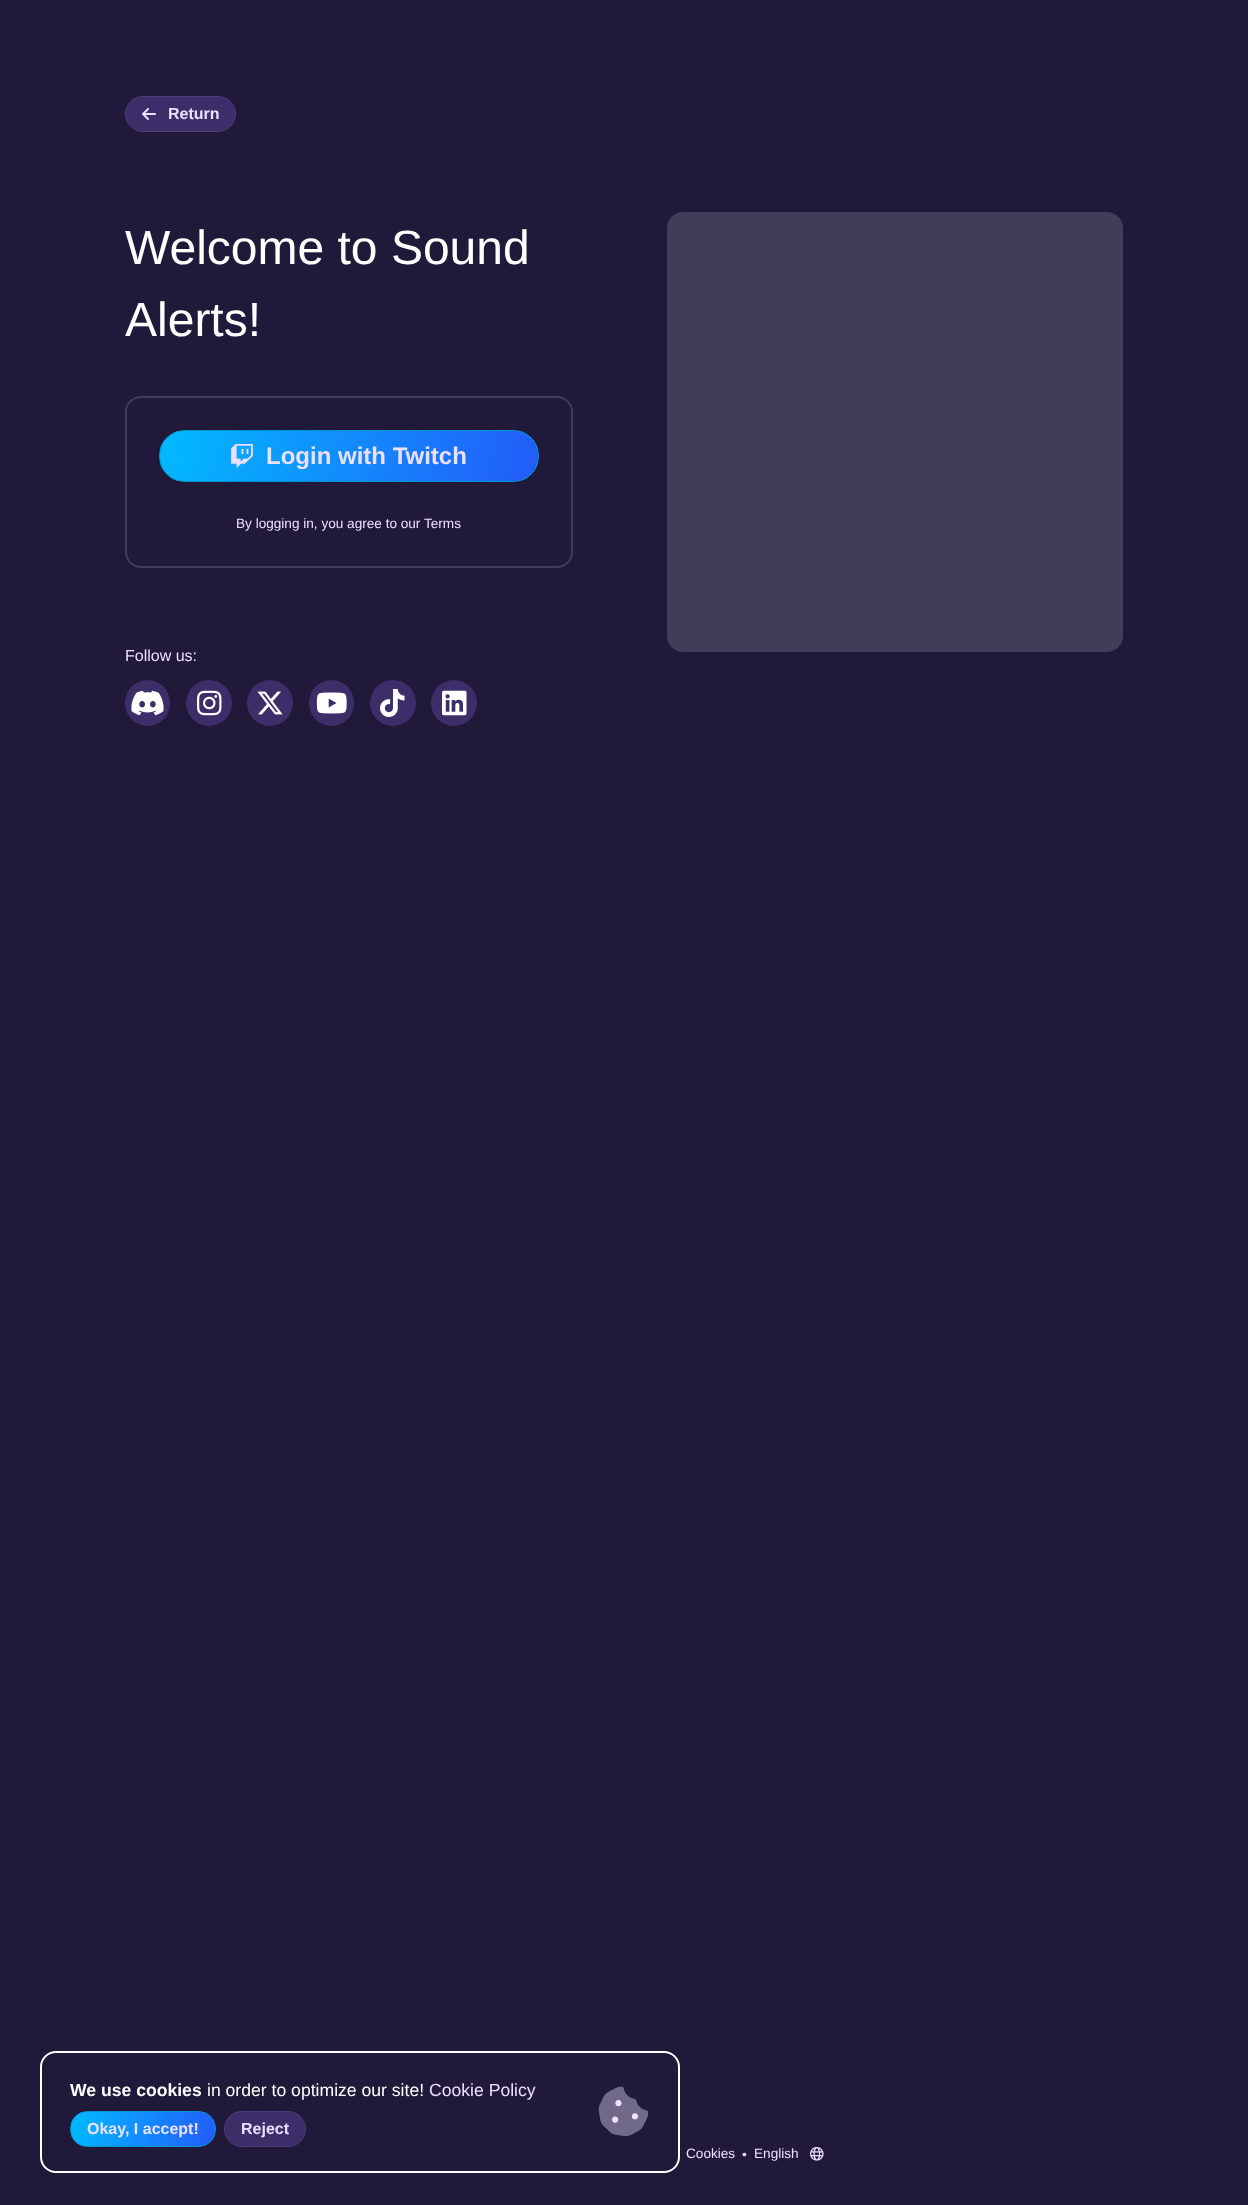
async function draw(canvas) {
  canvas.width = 1248
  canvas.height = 2205
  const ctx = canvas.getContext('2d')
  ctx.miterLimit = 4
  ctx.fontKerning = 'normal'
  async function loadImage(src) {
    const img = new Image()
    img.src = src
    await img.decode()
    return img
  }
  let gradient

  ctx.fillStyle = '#21193a'
  ctx.fillRect(0, 0, 1248, 2205)
  ctx.fillStyle = '#3b2e69'
  ctx.beginPath()
  ctx.roundRect(125.5, 96.5, 110, 35, 17.5)
  ctx.fill()
  ctx.strokeStyle = '#4b3f78'
  ctx.stroke()
  ctx.drawImage(await loadImage('image0.png'), 142, 108, 14, 12)
  ctx.font = 'bold 16px Liberation Sans'
  ctx.fillStyle = '#ebe0ff'
  ctx.fillText('Return', 168, 119)
  ctx.font = '48px Liberation Sans'
  ctx.fillStyle = '#fff'
  ctx.fillText('Welcome to Sound', 125, 264)
  ctx.fillText('Alerts!', 125, 336)
  ctx.beginPath()
  ctx.roundRect(126, 397, 446, 170, 15)
  ctx.strokeStyle = '#423c58'
  ctx.lineWidth = 2
  ctx.stroke()
  ctx.save()
  ctx.beginPath()
  ctx.roundRect(159, 430, 380, 52, 26)
  ctx.clip()
  gradient = ctx.createLinearGradient(166, 407, 532, 505)
  gradient.addColorStop(0, '#01bbff')
  gradient.addColorStop(1, '#235bf8')
  ctx.fillStyle = gradient
  ctx.fillRect(160, 431, 378, 50)
  ctx.restore()
  ctx.beginPath()
  ctx.roundRect(159.5, 430.5, 379, 51, 25.5)
  ctx.strokeStyle = '#0096cc'
  ctx.lineWidth = 1
  ctx.stroke()
  ctx.drawImage(await loadImage('image1.png'), 231, 444, 22, 24)
  ctx.font = 'bold 24px Liberation Sans'
  ctx.fillStyle = '#ebe0ff'
  ctx.fillText('Login with Twitch', 266, 464)
  ctx.font = '13.6px Liberation Sans'
  ctx.fillText('By logging in, you agree to our Terms', 236, 528)
  ctx.font = '16px Liberation Sans'
  ctx.fillText('Follow us:', 125, 661)
  ctx.fillStyle = '#3b2e69'
  ctx.beginPath()
  ctx.roundRect(125, 680, 45, 46, 22.5)
  ctx.fill()
  ctx.drawImage(await loadImage('image2.png'), 131, 690, 33, 26)
  ctx.beginPath()
  ctx.arc(209, 703, 23, 0, 2 * Math.PI)
  ctx.fill()
  ctx.drawImage(await loadImage('image3.png'), 197, 690, 25, 26)
  ctx.beginPath()
  ctx.arc(270, 703, 23, 0, 2 * Math.PI)
  ctx.fill()
  ctx.drawImage(await loadImage('image4.png'), 257, 691, 26, 24)
  ctx.beginPath()
  ctx.roundRect(309, 680, 45, 46, 22.5)
  ctx.fill()
  ctx.drawImage(await loadImage('image5.png'), 316, 692, 31, 22)
  ctx.beginPath()
  ctx.arc(393, 703, 23, 0, 2 * Math.PI)
  ctx.fill()
  ctx.drawImage(await loadImage('image6.png'), 380, 689, 25, 28)
  ctx.beginPath()
  ctx.arc(454, 703, 23, 0, 2 * Math.PI)
  ctx.fill()
  ctx.drawImage(await loadImage('image7.png'), 442, 690, 25, 26)
  ctx.fillStyle = '#423c58'
  ctx.beginPath()
  ctx.roundRect(667, 212, 456, 440, 16)
  ctx.fill()
  ctx.font = '13.6px Liberation Sans'
  ctx.fillStyle = '#ebe0ff'
  ctx.fillText('Cookies', 686, 2158)
  ctx.fillText('•', 742, 2159)
  ctx.fillText('English', 754, 2158)
  ctx.drawImage(await loadImage('image8.png'), 810, 2147, 14, 14)
  ctx.beginPath()
  ctx.roundRect(41, 2052, 638, 120, 15)
  ctx.strokeStyle = '#fff'
  ctx.lineWidth = 2
  ctx.stroke()
  ctx.font = 'bold 17.6px Liberation Sans'
  ctx.fillStyle = '#fff'
  ctx.fillText('We use cookies', 70, 2096)
  ctx.font = '17.6px Liberation Sans'
  ctx.fillText('in order to optimize our site!', 207, 2096)
  ctx.fillStyle = '#ebe0ff'
  ctx.fillText('Cookie Policy', 429, 2096)
  ctx.save()
  ctx.beginPath()
  ctx.roundRect(70, 2111, 146, 36, 18)
  ctx.clip()
  gradient = ctx.createLinearGradient(72, 2110, 214, 2148)
  gradient.addColorStop(0, '#01bbff')
  gradient.addColorStop(1, '#235bf8')
  ctx.fillStyle = gradient
  ctx.fillRect(71, 2112, 144, 34)
  ctx.restore()
  ctx.beginPath()
  ctx.roundRect(70.5, 2111.5, 145, 35, 17.5)
  ctx.strokeStyle = '#0096cc'
  ctx.lineWidth = 1
  ctx.stroke()
  ctx.font = 'bold 16px Liberation Sans'
  ctx.fillText('Okay, I accept!', 87, 2134)
  ctx.fillStyle = '#3b2e69'
  ctx.beginPath()
  ctx.roundRect(224.5, 2111.5, 81, 35, 17.5)
  ctx.fill()
  ctx.strokeStyle = '#4b3f78'
  ctx.stroke()
  ctx.fillStyle = '#ebe0ff'
  ctx.fillText('Reject', 241, 2134)
  ctx.drawImage(await loadImage('image9.png'), 598, 2086, 51, 51)
}

draw(document.querySelector('canvas'))
